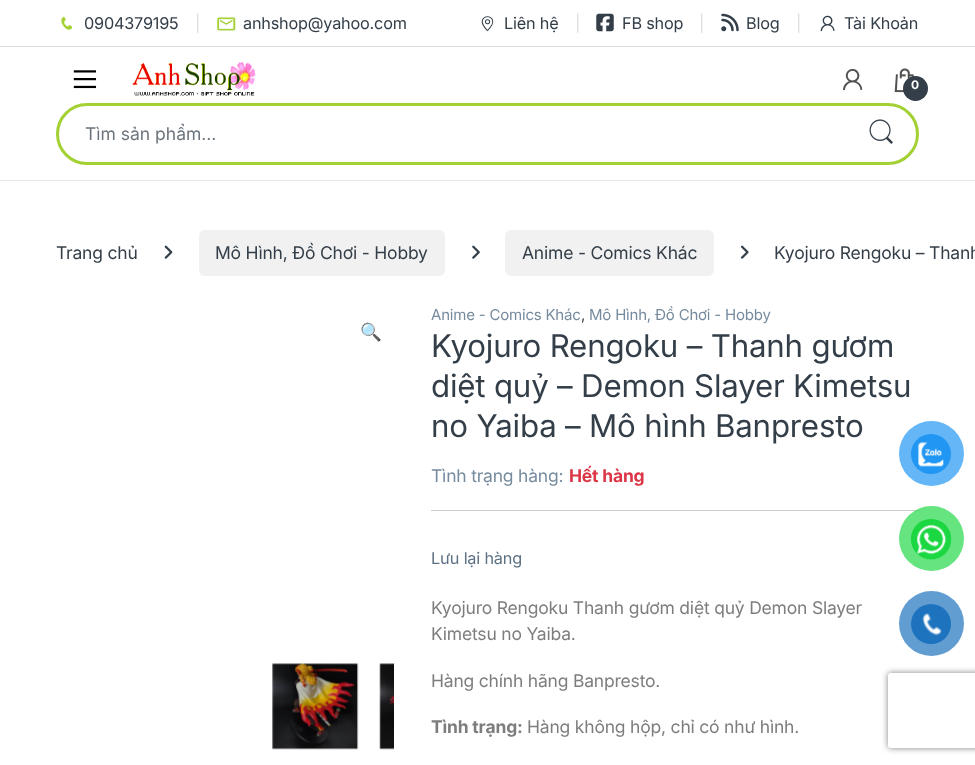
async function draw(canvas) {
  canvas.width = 975
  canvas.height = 765
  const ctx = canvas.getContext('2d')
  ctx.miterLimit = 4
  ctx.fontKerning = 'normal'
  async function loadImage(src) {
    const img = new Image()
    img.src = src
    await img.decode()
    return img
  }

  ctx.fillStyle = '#fff'
  ctx.fillRect(0, 0, 975, 765)
  ctx.fillStyle = '#ddd'
  ctx.fillRect(0, 46, 975, 1)
  ctx.drawImage(await loadImage('image0.png'), 61, 16, 12, 14)
  ctx.letterSpacing = '-0.2px'
  ctx.font = '16.25px Inter'
  ctx.fillStyle = '#333e48'
  ctx.fillText('0904379195', 84, 29)
  ctx.fillStyle = '#ddd'
  ctx.fillText('|', 195, 29)
  ctx.drawImage(await loadImage('image1.png'), 217, 17, 19, 14)
  ctx.fillStyle = '#333e48'
  ctx.fillText('anhshop@yahoo.com', 243, 29)
  ctx.drawImage(await loadImage('image2.png'), 481, 16, 13, 16)
  ctx.fillText('Liên hệ', 504, 29)
  ctx.fillStyle = '#ddd'
  ctx.fillText('|', 575, 29)
  ctx.drawImage(await loadImage('image3.png'), 596, 13, 18, 19)
  ctx.fillStyle = '#333e48'
  ctx.fillText('FB shop', 622, 29)
  ctx.fillStyle = '#ddd'
  ctx.fillText('|', 699, 29)
  ctx.drawImage(await loadImage('image4.png'), 721, 13, 18, 19)
  ctx.fillStyle = '#333e48'
  ctx.fillText('Blog', 746, 29)
  ctx.fillStyle = '#ddd'
  ctx.fillText('|', 796, 29)
  ctx.drawImage(await loadImage('image5.png'), 820, 15, 15, 17)
  ctx.fillStyle = '#333e48'
  ctx.fillText('Tài Khoản', 844, 29)
  ctx.fillStyle = '#e7e7e7'
  ctx.fillRect(0, 180, 975, 1)
  ctx.drawImage(await loadImage('image6.png'), 73, 70, 24, 19)
  ctx.drawImage(await loadImage('image7.png'), 132, 62, 124, 34)
  ctx.drawImage(await loadImage('image8.png'), 843, 69, 20, 22)
  ctx.drawImage(await loadImage('image9.png'), 894, 68, 20, 25)
  ctx.fillStyle = '#333e48'
  ctx.beginPath()
  ctx.arc(915.5, 88.5, 12.5, 0, 2 * Math.PI)
  ctx.fill()
  ctx.font = 'bold 12px Inter'
  ctx.fillStyle = '#fff'
  ctx.fillText('0', 911, 89)
  ctx.beginPath()
  ctx.roundRect(57.5, 104.5, 860, 59, 29.5)
  ctx.strokeStyle = '#a3d133'
  ctx.lineWidth = 3
  ctx.stroke()
  ctx.letterSpacing = '0px'
  ctx.font = '17.5px Inter'
  ctx.fillStyle = '#6c757d'
  ctx.fillText('Tìm sản phẩm…', 85, 140)
  ctx.drawImage(await loadImage('image10.png'), 869, 119, 24, 25)
  ctx.letterSpacing = '-0.2px'
  ctx.fillStyle = '#333e48'
  ctx.fillText('Trang chủ', 56, 259)
  ctx.drawImage(await loadImage('image11.png'), 164, 245, 9, 14)
  ctx.fillStyle = '#f1f1f1'
  ctx.beginPath()
  ctx.roundRect(199, 230, 246, 46, 6)
  ctx.fill()
  ctx.fillStyle = '#333e48'
  ctx.fillText('Mô Hình, Đồ Chơi - Hobby', 215, 259)
  ctx.drawImage(await loadImage('image12.png'), 472, 245, 8, 14)
  ctx.fillStyle = '#f1f1f1'
  ctx.beginPath()
  ctx.roundRect(505, 230, 209, 46, 6)
  ctx.fill()
  ctx.fillStyle = '#333e48'
  ctx.fillText('Anime - Comics Khác', 522, 259)
  ctx.drawImage(await loadImage('image13.png'), 740, 245, 9, 14)
  ctx.fillText('Kyojuro Rengoku – Thanh', 774, 259)
  ctx.font = '17.5px Noto Color Emoji'
  ctx.fillText('🔍', 360, 338)
  ctx.drawImage(await loadImage('image14.png'), 272, 663, 87, 87)
  ctx.drawImage(await loadImage('image15.png'), 379, 663, 15, 87)
  ctx.font = '15px Inter'
  ctx.fillStyle = '#768b9e'
  ctx.fillText('Anime - Comics Khác', 431, 320)
  ctx.fillStyle = '#333e48'
  ctx.fillText(',', 581, 320)
  ctx.fillStyle = '#768b9e'
  ctx.fillText('Mô Hình, Đồ Chơi - Hobby', 589, 320)
  ctx.font = '31.25px Inter'
  ctx.fillStyle = '#333e48'
  ctx.fillText('Kyojuro Rengoku – Thanh gươm', 431, 357)
  ctx.fillText('diệt quỷ – Demon Slayer Kimetsu', 431, 397)
  ctx.fillText('no Yaiba – Mô hình Banpresto', 431, 437)
  ctx.font = '17.5px Inter'
  ctx.fillStyle = '#768b9e'
  ctx.fillText('Tình trạng hàng:', 431, 482)
  ctx.font = 'bold 17.5px Inter'
  ctx.fillStyle = '#dc3545'
  ctx.fillText('Hết hàng', 569, 482)
  ctx.fillStyle = '#cccfd1'
  ctx.fillRect(431, 510, 488, 1)
  ctx.font = '16.25px Inter'
  ctx.fillStyle = '#5d7184'
  ctx.fillText('Lưu lại hàng', 431, 564)
  ctx.font = '17.5px Inter'
  ctx.fillStyle = '#7d7d7d'
  ctx.fillText('Kyojuro Rengoku Thanh gươm diệt quỷ Demon Slayer', 431, 614)
  ctx.fillText('Kimetsu no Yaiba.', 431, 640)
  ctx.fillText('Hàng chính hãng Banpresto.', 431, 687)
  ctx.font = 'bold 17.5px Inter'
  ctx.fillText('Tình trạng:', 431, 733)
  ctx.font = '17.5px Inter'
  ctx.fillText('Hàng không hộp, chỉ có như hình.', 527, 733)
  ctx.fillStyle = '#64b6f7'
  ctx.beginPath()
  ctx.arc(931.5, 453.5, 32.5, 0, 2 * Math.PI)
  ctx.fill()
  ctx.fillStyle = '#2196f3'
  ctx.beginPath()
  ctx.arc(931, 454, 20, 0, 2 * Math.PI)
  ctx.fill()
  ctx.drawImage(await loadImage('image16.png'), 918, 442, 26, 25)
  ctx.fillStyle = '#23d948b3'
  ctx.beginPath()
  ctx.arc(931.5, 538.5, 32.5, 0, 2 * Math.PI)
  ctx.fill()
  ctx.fillStyle = '#1cd741'
  ctx.beginPath()
  ctx.arc(931, 539, 20, 0, 2 * Math.PI)
  ctx.fill()
  ctx.drawImage(await loadImage('image17.png'), 911, 519, 41, 41)
  ctx.fillStyle = '#629dd2'
  ctx.beginPath()
  ctx.arc(931.5, 623.5, 32.5, 0, 2 * Math.PI)
  ctx.fill()
  ctx.fillStyle = '#1e73be'
  ctx.beginPath()
  ctx.arc(931, 624, 20, 0, 2 * Math.PI)
  ctx.fill()
  ctx.drawImage(await loadImage('image18.png'), 922, 613, 20, 23)
  ctx.save()
  ctx.beginPath()
  ctx.moveTo(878, 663)
  ctx.lineTo(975, 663)
  ctx.lineTo(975, 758)
  ctx.lineTo(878, 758)
  ctx.closePath()
  ctx.moveTo(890.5, 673)
  ctx.lineTo(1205.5, 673)
  ctx.bezierCurveTo(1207, 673, 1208, 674, 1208, 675.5)
  ctx.lineTo(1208, 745.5)
  ctx.bezierCurveTo(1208, 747, 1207, 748, 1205.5, 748)
  ctx.lineTo(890.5, 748)
  ctx.bezierCurveTo(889, 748, 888, 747, 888, 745.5)
  ctx.lineTo(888, 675.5)
  ctx.bezierCurveTo(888, 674, 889, 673, 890.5, 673)
  ctx.closePath()
  ctx.clip('evenodd')
  ctx.fillStyle = '#808080'
  ctx.filter = 'blur(3px)'
  ctx.beginPath()
  ctx.roundRect(888, 673, 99, 75, 2.5)
  ctx.fill()
  ctx.filter = 'none'
  ctx.restore()
}

draw(document.querySelector('canvas'))
